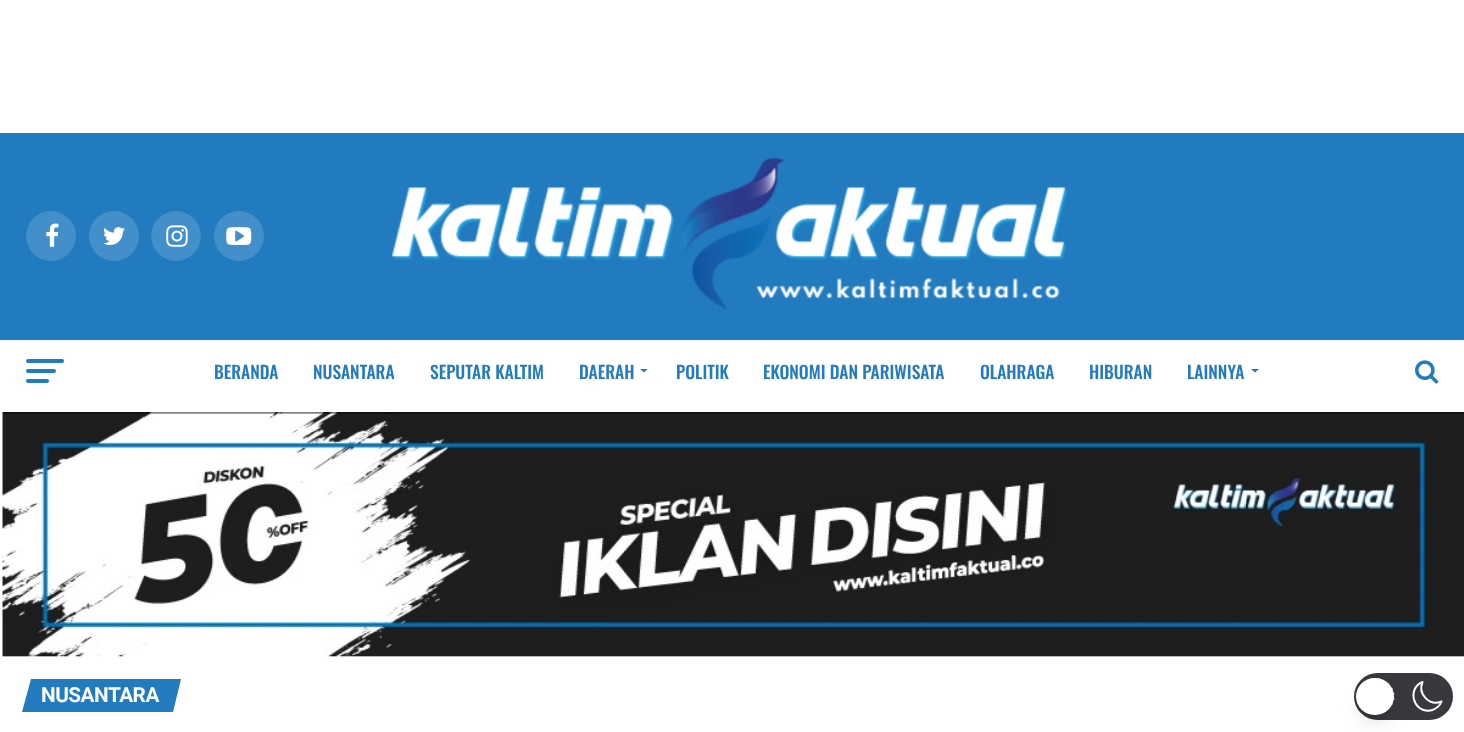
async function draw(canvas) {
  canvas.width = 1464
  canvas.height = 732
  const ctx = canvas.getContext('2d')
  ctx.miterLimit = 4
  ctx.fontKerning = 'normal'
  async function loadImage(src) {
    const img = new Image()
    img.src = src
    await img.decode()
    return img
  }

  ctx.fillStyle = '#fff'
  ctx.fillRect(0, 0, 1464, 732)
  ctx.fillStyle = '#227bbf'
  ctx.fillRect(0, 133, 1464, 207)
  ctx.fillStyle = '#438fc9'
  ctx.beginPath()
  ctx.arc(51, 236, 25, 0, 2 * Math.PI)
  ctx.fill()
  ctx.drawImage(await loadImage('image0.png'), 46, 223, 13, 24)
  ctx.beginPath()
  ctx.arc(114, 236, 25, 0, 2 * Math.PI)
  ctx.fill()
  ctx.drawImage(await loadImage('image1.png'), 103, 227, 22, 18)
  ctx.beginPath()
  ctx.arc(176, 236, 25, 0, 2 * Math.PI)
  ctx.fill()
  ctx.drawImage(await loadImage('image2.png'), 166, 225, 22, 22)
  ctx.beginPath()
  ctx.arc(239, 236, 25, 0, 2 * Math.PI)
  ctx.fill()
  ctx.drawImage(await loadImage('image3.png'), 226, 227, 26, 18)
  ctx.drawImage(await loadImage('image4.png'), 391, 157, 677, 153)
  ctx.fillStyle = '#227bbf'
  ctx.beginPath()
  ctx.roundRect(26, 359, 38, 4, 2)
  ctx.fill()
  ctx.beginPath()
  ctx.roundRect(26, 369, 30, 4, 2)
  ctx.fill()
  ctx.beginPath()
  ctx.roundRect(26, 379, 23, 4, 2)
  ctx.fill()
  ctx.font = '500 17.5px Oswald'
  ctx.fillText('BERANDA', 214, 379)
  ctx.fillText('NUSANTARA', 313, 379)
  ctx.fillText('SEPUTAR KALTIM', 430, 379)
  ctx.fillText('DAERAH', 579, 379)
  ctx.beginPath()
  ctx.moveTo(640, 369)
  ctx.lineTo(647.5, 369)
  ctx.lineTo(644, 372.5)
  ctx.closePath()
  ctx.fill()
  ctx.fillText('POLITIK', 676, 379)
  ctx.fillText('EKONOMI DAN PARIWISATA', 763, 379)
  ctx.fillText('OLAHRAGA', 980, 379)
  ctx.fillText('HIBURAN', 1089, 379)
  ctx.fillText('LAINNYA', 1187, 379)
  ctx.beginPath()
  ctx.moveTo(1251, 369)
  ctx.lineTo(1259, 369)
  ctx.lineTo(1255, 372.5)
  ctx.closePath()
  ctx.fill()
  ctx.drawImage(await loadImage('image5.png'), 1415, 360, 24, 24)
  ctx.drawImage(await loadImage('image6.png'), 2, 412, 1462, 245)
  ctx.beginPath()
  ctx.moveTo(31, 679)
  ctx.lineTo(181, 679)
  ctx.lineTo(173, 712)
  ctx.lineTo(22, 712)
  ctx.closePath()
  ctx.fill()
  ctx.letterSpacing = '-0.5px'
  ctx.font = 'bold 20.75px Roboto'
  ctx.fillStyle = '#fff'
  ctx.fillText('NUSANTARA', 41, 702)
  ctx.fillStyle = '#39393d'
  ctx.beginPath()
  ctx.roundRect(1354, 673, 99, 47, 23.5)
  ctx.fill()
  ctx.drawImage(await loadImage('image7.png'), 1388, 683, 7, 26)
  ctx.fillStyle = '#0000001a'
  ctx.filter = 'blur(4px)'
  ctx.beginPath()
  ctx.roundRect(1361, 688, 28, 27, 13.5)
  ctx.fill()
  ctx.filter = 'none'
  ctx.beginPath()
  ctx.moveTo(1441.5, 701.5)
  ctx.bezierCurveTo(1429.5, 706.5, 1417.5, 694, 1422.5, 682)
  ctx.bezierCurveTo(1405.5, 689, 1414.5, 715.5, 1432.5, 710)
  ctx.bezierCurveTo(1436.5, 708.5, 1440, 705.5, 1441.5, 701.5)
  ctx.closePath()
  ctx.strokeStyle = '#fff'
  ctx.lineWidth = 2
  ctx.lineCap = 'round'
  ctx.lineJoin = 'round'
  ctx.stroke()
  ctx.filter = 'blur(9.5px)'
  ctx.beginPath()
  ctx.roundRect(1360, 694, 30, 30, 15)
  ctx.fill()
  ctx.filter = 'none'
  ctx.fillStyle = '#fff'
  ctx.beginPath()
  ctx.roundRect(1356, 678, 38, 37, 18.5)
  ctx.fill()
}

draw(document.querySelector('canvas'))
